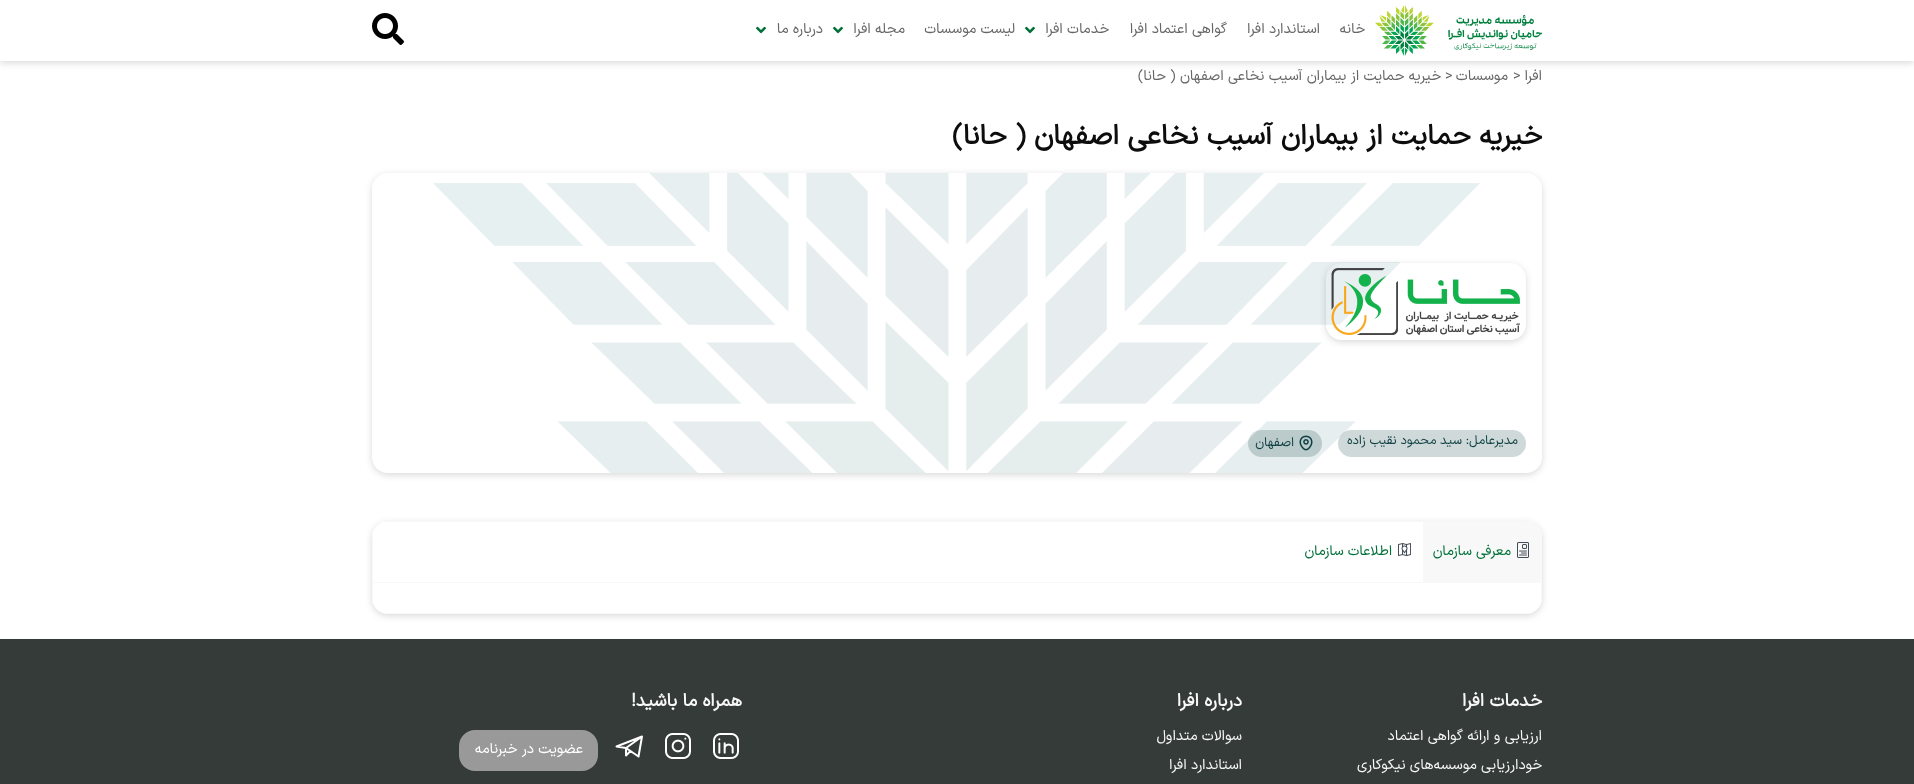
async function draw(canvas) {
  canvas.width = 1914
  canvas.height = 784
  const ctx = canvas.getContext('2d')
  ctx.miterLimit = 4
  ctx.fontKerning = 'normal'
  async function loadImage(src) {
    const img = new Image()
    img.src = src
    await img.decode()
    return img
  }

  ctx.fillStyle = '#fff'
  ctx.fillRect(0, 0, 1914, 784)
  ctx.fillStyle = '#00000026'
  ctx.filter = 'blur(3.5px)'
  ctx.beginPath()
  ctx.rect(0, 2, 1914, 61)
  ctx.fill()
  ctx.filter = 'none'
  ctx.fillStyle = '#fff'
  ctx.fillRect(0, 0, 1914, 61)
  ctx.drawImage(await loadImage('image0.png'), 1375, 5, 167, 51)
  ctx.direction = 'rtl'
  ctx.font = '14.4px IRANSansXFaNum'
  ctx.fillStyle = '#666'
  ctx.fillText('خانه', 1365, 33)
  ctx.fillText('استاندارد افرا', 1320, 33)
  ctx.fillText('گواهی اعتماد افرا', 1227, 33)
  ctx.fillText('خدمات افرا', 1109, 33)
  ctx.drawImage(await loadImage('image1.png'), 1025, 26, 10, 8)
  ctx.fillText('لیست موسسات', 1015, 33)
  ctx.fillText('مجله افرا', 905, 33)
  ctx.drawImage(await loadImage('image1.png'), 833, 26, 10, 8)
  ctx.fillText('درباره ما', 823, 33)
  ctx.drawImage(await loadImage('image1.png'), 756, 26, 10, 8)
  ctx.drawImage(await loadImage('image2.png'), 372, 13, 32, 32)
  ctx.fillText('افرا', 1542, 80)
  ctx.direction = 'ltr'
  ctx.fillText('>', 1513, 80)
  ctx.direction = 'rtl'
  ctx.fillText('موسسات', 1508, 80)
  ctx.direction = 'ltr'
  ctx.fillText('>', 1445, 80)
  ctx.direction = 'rtl'
  ctx.fillText('خیریه حمایت از بیماران آسیب نخاعی اصفهان ( حانا)', 1441, 80)
  ctx.font = 'bold 28px IRANSansXFaNum'
  ctx.fillStyle = '#0d0d0d'
  ctx.fillText('خیریه حمایت از بیماران آسیب نخاعی اصفهان ( حانا)', 1542, 144)
  ctx.save()
  ctx.beginPath()
  ctx.moveTo(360, 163)
  ctx.lineTo(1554, 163)
  ctx.lineTo(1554, 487)
  ctx.lineTo(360, 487)
  ctx.closePath()
  ctx.moveTo(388, 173)
  ctx.lineTo(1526, 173)
  ctx.bezierCurveTo(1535, 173, 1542, 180, 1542, 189)
  ctx.lineTo(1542, 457)
  ctx.bezierCurveTo(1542, 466, 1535, 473, 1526, 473)
  ctx.lineTo(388, 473)
  ctx.bezierCurveTo(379, 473, 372, 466, 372, 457)
  ctx.lineTo(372, 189)
  ctx.bezierCurveTo(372, 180, 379, 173, 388, 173)
  ctx.closePath()
  ctx.clip('evenodd')
  ctx.fillStyle = '#00000026'
  ctx.filter = 'blur(3.5px)'
  ctx.beginPath()
  ctx.roundRect(372, 175, 1170, 300, 16)
  ctx.fill()
  ctx.filter = 'none'
  ctx.restore()
  ctx.drawImage(await loadImage('image3.png'), 433, 173, 1047, 300)
  ctx.save()
  ctx.beginPath()
  ctx.moveTo(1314, 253)
  ctx.lineTo(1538, 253)
  ctx.lineTo(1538, 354)
  ctx.lineTo(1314, 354)
  ctx.closePath()
  ctx.moveTo(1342, 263)
  ctx.lineTo(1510, 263)
  ctx.bezierCurveTo(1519, 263, 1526, 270, 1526, 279)
  ctx.lineTo(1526, 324)
  ctx.bezierCurveTo(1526, 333, 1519, 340, 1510, 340)
  ctx.lineTo(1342, 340)
  ctx.bezierCurveTo(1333, 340, 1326, 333, 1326, 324)
  ctx.lineTo(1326, 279)
  ctx.bezierCurveTo(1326, 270, 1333, 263, 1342, 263)
  ctx.closePath()
  ctx.clip('evenodd')
  ctx.fillStyle = '#00000026'
  ctx.filter = 'blur(3.5px)'
  ctx.beginPath()
  ctx.roundRect(1326, 265, 200, 77, 16)
  ctx.fill()
  ctx.filter = 'none'
  ctx.restore()
  ctx.drawImage(await loadImage('image4.png'), 1331, 268, 189, 67)
  ctx.fillStyle = '#0e3f4333'
  ctx.beginPath()
  ctx.roundRect(1338, 430, 188, 27, 13.5)
  ctx.fill()
  ctx.font = '12.75px IRANSansXFaNum'
  ctx.fillStyle = '#0e3f43'
  ctx.fillText('مدیرعامل: سید محمود نقیب زاده', 1518, 444)
  ctx.fillStyle = '#0e3f4333'
  ctx.beginPath()
  ctx.roundRect(1248, 430, 74, 27, 13.5)
  ctx.fill()
  ctx.drawImage(await loadImage('image5.png'), 1299, 435, 14, 16)
  ctx.fillStyle = '#0e3f43'
  ctx.fillText('اصفهان', 1294, 446)
  ctx.fillStyle = '#00000026'
  ctx.filter = 'blur(3.5px)'
  ctx.beginPath()
  ctx.roundRect(372, 523, 1170, 93, 16)
  ctx.fill()
  ctx.filter = 'none'
  ctx.fillStyle = '#fff'
  ctx.beginPath()
  ctx.roundRect(372, 521, 1170, 62, [16, 16, 0, 0])
  ctx.fill()
  ctx.fillStyle = '#f7f8f7'
  ctx.beginPath()
  ctx.moveTo(372, 537)
  ctx.lineTo(372, 583)
  ctx.lineTo(1542, 583)
  ctx.lineTo(1542, 537)
  ctx.lineTo(1541, 531)
  ctx.lineTo(1541, 582)
  ctx.lineTo(373, 582)
  ctx.lineTo(373, 531)
  ctx.closePath()
  ctx.moveTo(388, 521)
  ctx.lineTo(382, 522)
  ctx.lineTo(1532, 522)
  ctx.lineTo(1526, 521)
  ctx.closePath()
  ctx.fill('evenodd')
  ctx.save()
  ctx.beginPath()
  ctx.roundRect(372, 521, 1170, 93, 16)
  ctx.clip()
  ctx.fillRect(1423, 522, 118, 60)
  ctx.restore()
  ctx.drawImage(await loadImage('image6.png'), 1517, 542, 12, 16)
  ctx.font = '14px IRANSansXFaNum'
  ctx.fillStyle = '#007038'
  ctx.fillText('معرفی سازمان', 1511, 555)
  ctx.drawImage(await loadImage('image7.png'), 1398, 543, 13, 14)
  ctx.fillText('اطلاعات سازمان', 1392, 555)
  ctx.fillStyle = '#fff'
  ctx.beginPath()
  ctx.roundRect(372, 583, 1170, 31, [0, 0, 16, 16])
  ctx.fill()
  ctx.save()
  ctx.beginPath()
  ctx.roundRect(372, 521, 1170, 93, 16)
  ctx.clip()
  ctx.fillStyle = '#f7f8f7'
  ctx.fillRect(1541, 583, 1, 21)
  ctx.fillRect(382, 613, 1150, 1)
  ctx.fillRect(372, 583, 1, 21)
  ctx.restore()
  ctx.fillStyle = '#353b38'
  ctx.fillRect(0, 639, 1914, 145)
  ctx.font = 'bold 18px IRANSansXFaNum'
  ctx.fillStyle = '#f7f8f7'
  ctx.fillText('خدمات افرا', 1542, 706)
  ctx.font = '14.4px IRANSansXFaNum'
  ctx.fillText('ارزیابی و ارائه گواهی اعتماد', 1542, 740)
  ctx.fillText('خودارزیابی موسسه‌های نیکوکاری', 1542, 769)
  ctx.font = 'bold 18px IRANSansXFaNum'
  ctx.fillText('درباره افرا', 1242, 706)
  ctx.font = '14.4px IRANSansXFaNum'
  ctx.fillText('سوالات متداول', 1242, 740)
  ctx.fillText('استاندارد افرا', 1242, 769)
  ctx.font = 'bold 18px IRANSansXFaNum'
  ctx.fillText('همراه ما باشید!', 742, 706)
  ctx.drawImage(await loadImage('image8.png'), 713, 733, 26, 26)
  ctx.drawImage(await loadImage('image9.png'), 665, 733, 26, 26)
  ctx.beginPath()
  ctx.moveTo(642, 736.5)
  ctx.lineTo(616.5, 746.5)
  ctx.lineTo(626, 748)
  ctx.moveTo(642, 736.5)
  ctx.lineTo(638.5, 756.5)
  ctx.lineTo(626, 748)
  ctx.moveTo(642, 736.5)
  ctx.lineTo(626, 748)
  ctx.moveTo(626, 748)
  ctx.lineTo(626, 755.5)
  ctx.lineTo(630.5, 751)
  ctx.strokeStyle = '#fff'
  ctx.lineWidth = 2
  ctx.lineCap = 'round'
  ctx.lineJoin = 'round'
  ctx.stroke()
  ctx.fillStyle = '#999'
  ctx.beginPath()
  ctx.roundRect(459, 730, 139, 41, 16)
  ctx.fill()
  ctx.font = '14.4px IRANSansXFaNum'
  ctx.fillStyle = '#fff'
  ctx.fillText('عضویت در خبرنامه', 583, 753)
}

draw(document.querySelector('canvas'))
